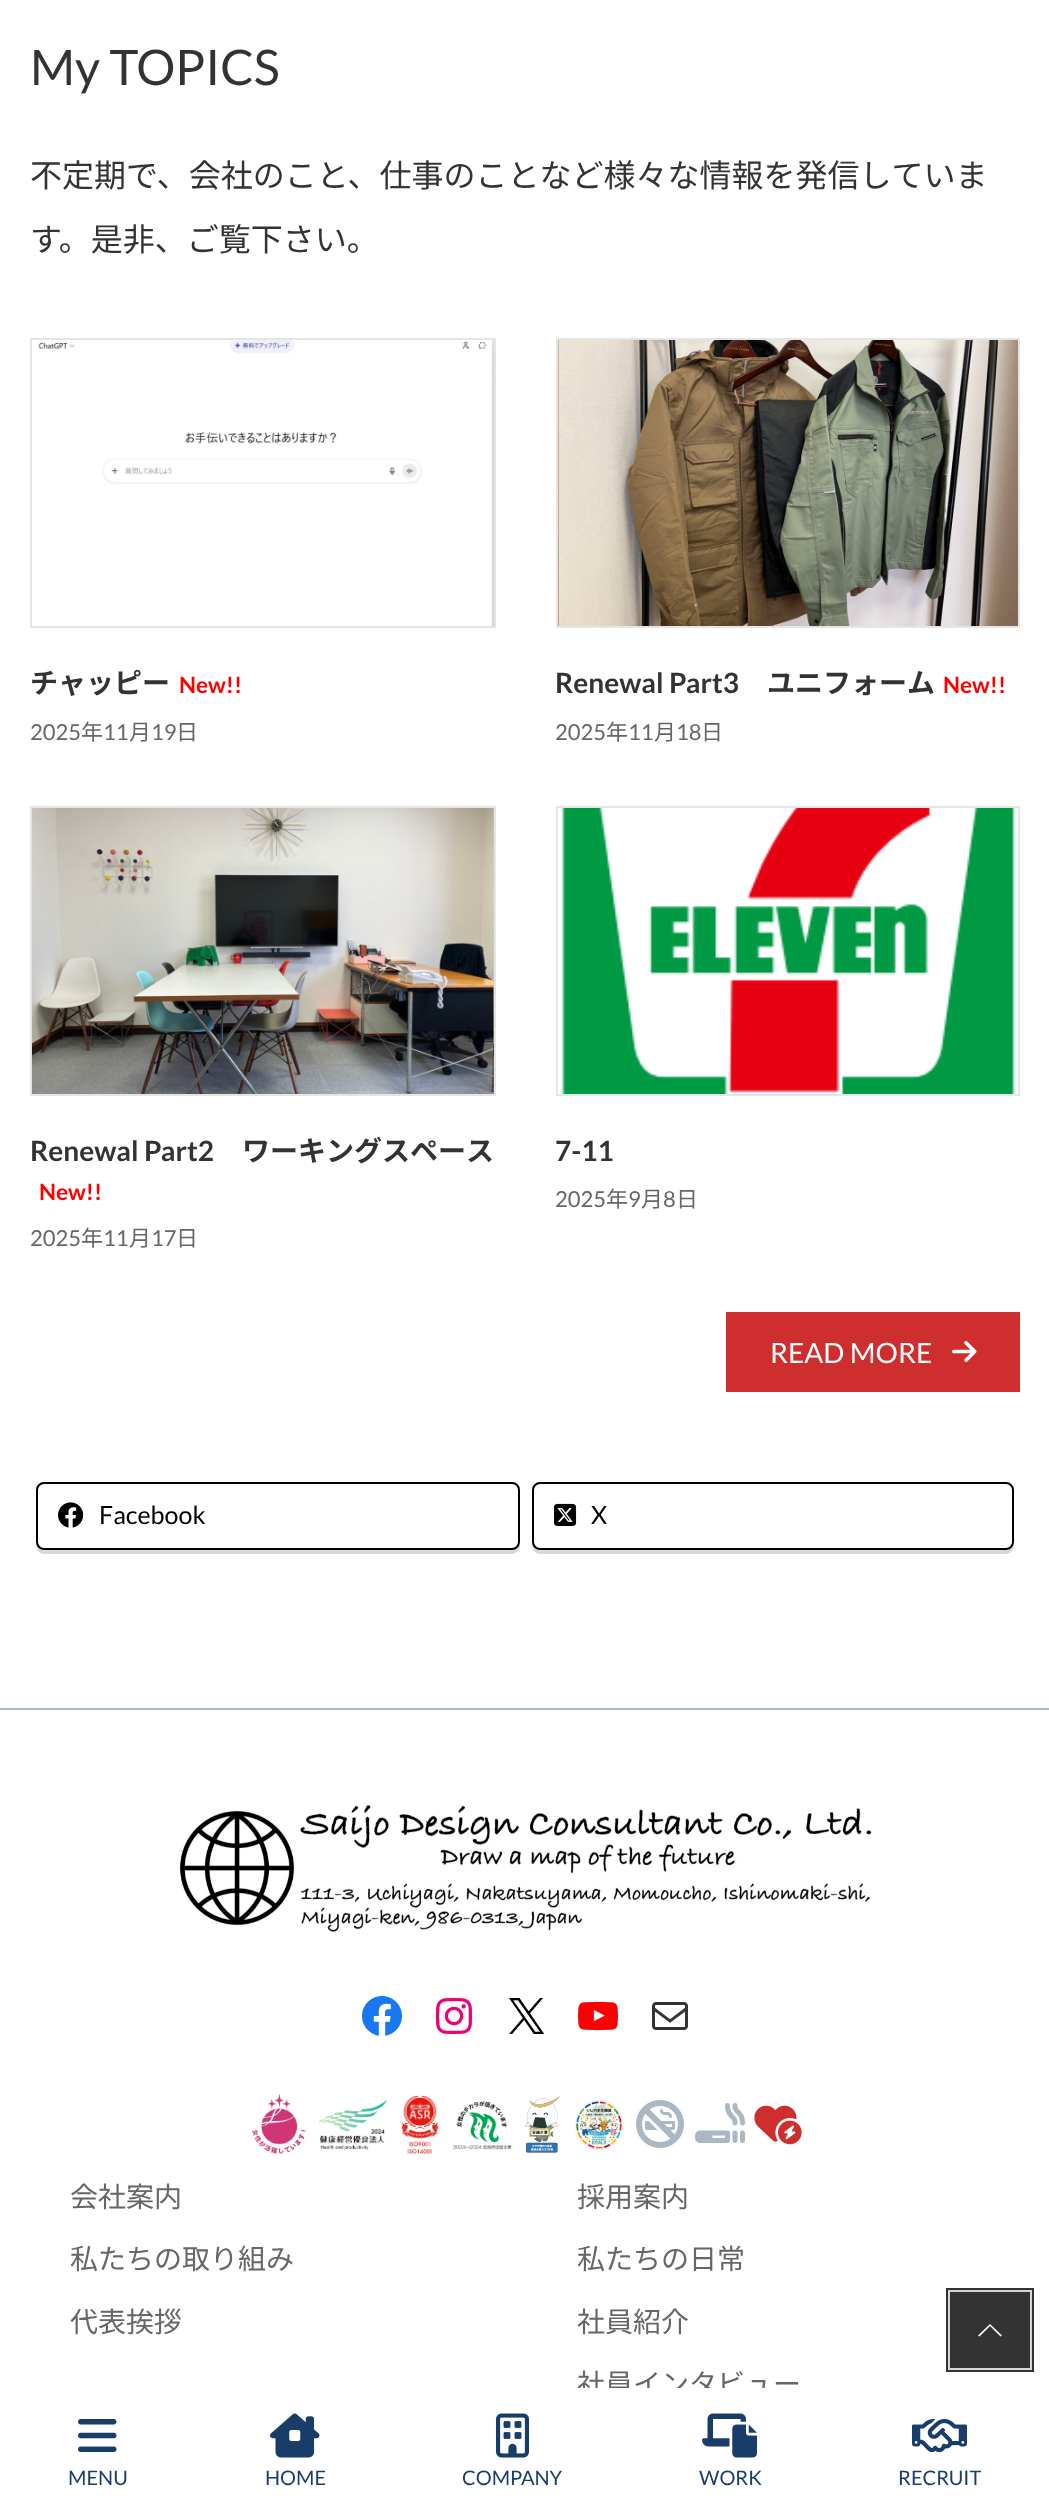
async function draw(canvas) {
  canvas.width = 1049
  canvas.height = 2511
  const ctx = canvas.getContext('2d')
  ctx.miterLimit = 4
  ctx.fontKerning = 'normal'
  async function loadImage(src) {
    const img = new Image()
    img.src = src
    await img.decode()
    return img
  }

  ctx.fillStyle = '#fff'
  ctx.fillRect(0, 0, 1049, 2511)
  ctx.font = '49px Lato'
  ctx.fillStyle = '#333'
  ctx.fillText('My TOPICS', 30, 85)
  ctx.font = '32px Noto Sans JP'
  ctx.fillText('不定期で、会社のこと、仕事のことなど様々な情報を発信していま', 30, 187)
  ctx.fillText('す。是非、ご覧下さい。', 30, 251)
  ctx.drawImage(await loadImage('image0.png'), 32, 340, 462, 286)
  ctx.strokeStyle = '#e5e5e5'
  ctx.lineWidth = 2
  ctx.strokeRect(31, 339, 464, 288)
  ctx.font = 'bold 28px Noto Sans JP'
  ctx.fillText('チャッピー', 30, 693)
  ctx.font = 'bold 22.5px Lato'
  ctx.fillStyle = '#f00'
  ctx.fillText('New!!', 179, 693)
  ctx.font = '22px Lato'
  ctx.fillStyle = '#666'
  ctx.fillText('2025', 30, 740)
  ctx.font = '22px Noto Sans JP'
  ctx.fillText('年', 81, 740)
  ctx.font = '22px Lato'
  ctx.fillText('11', 103, 740)
  ctx.font = '22px Noto Sans JP'
  ctx.fillText('月', 129, 740)
  ctx.font = '22px Lato'
  ctx.fillText('19', 151, 740)
  ctx.font = '22px Noto Sans JP'
  ctx.fillText('日', 176, 740)
  ctx.drawImage(await loadImage('image1.png'), 558, 340, 460, 286)
  ctx.strokeRect(557, 339, 462, 288)
  ctx.font = 'bold 28px Lato'
  ctx.fillStyle = '#333'
  ctx.fillText('Renewal Part3', 555, 693)
  ctx.font = 'bold 28px Noto Sans JP'
  ctx.fillText('ユニフォーム', 767, 693)
  ctx.font = 'bold 22.5px Lato'
  ctx.fillStyle = '#f00'
  ctx.fillText('New!!', 943, 693)
  ctx.font = '22px Lato'
  ctx.fillStyle = '#666'
  ctx.fillText('2025', 555, 740)
  ctx.font = '22px Noto Sans JP'
  ctx.fillText('年', 606, 740)
  ctx.font = '22px Lato'
  ctx.fillText('11', 628, 740)
  ctx.font = '22px Noto Sans JP'
  ctx.fillText('月', 654, 740)
  ctx.font = '22px Lato'
  ctx.fillText('18', 676, 740)
  ctx.font = '22px Noto Sans JP'
  ctx.fillText('日', 701, 740)
  ctx.drawImage(await loadImage('image2.png'), 32, 808, 462, 286)
  ctx.strokeRect(31, 807, 464, 288)
  ctx.font = 'bold 28px Lato'
  ctx.fillStyle = '#333'
  ctx.fillText('Renewal Part2', 30, 1161)
  ctx.font = 'bold 28px Noto Sans JP'
  ctx.fillText('ワーキングスペース', 242, 1161)
  ctx.font = 'bold 22.5px Lato'
  ctx.fillStyle = '#f00'
  ctx.fillText('New!!', 39, 1200)
  ctx.font = '22px Lato'
  ctx.fillStyle = '#666'
  ctx.fillText('2025', 30, 1246)
  ctx.font = '22px Noto Sans JP'
  ctx.fillText('年', 81, 1246)
  ctx.font = '22px Lato'
  ctx.fillText('11', 103, 1246)
  ctx.font = '22px Noto Sans JP'
  ctx.fillText('月', 129, 1246)
  ctx.font = '22px Lato'
  ctx.fillText('17', 151, 1246)
  ctx.font = '22px Noto Sans JP'
  ctx.fillText('日', 176, 1246)
  ctx.drawImage(await loadImage('image3.png'), 561, 808, 455, 286)
  ctx.strokeRect(557, 807, 462, 288)
  ctx.font = 'bold 28px Lato'
  ctx.fillStyle = '#333'
  ctx.fillText('7-11', 555, 1161)
  ctx.font = '22px Lato'
  ctx.fillStyle = '#666'
  ctx.fillText('2025', 555, 1207)
  ctx.font = '22px Noto Sans JP'
  ctx.fillText('年', 606, 1207)
  ctx.font = '22px Lato'
  ctx.fillText('9', 628, 1207)
  ctx.font = '22px Noto Sans JP'
  ctx.fillText('月', 641, 1207)
  ctx.font = '22px Lato'
  ctx.fillText('8', 663, 1207)
  ctx.font = '22px Noto Sans JP'
  ctx.fillText('日', 676, 1207)
  ctx.fillStyle = '#cf2e2e'
  ctx.fillRect(726, 1312, 294, 80)
  ctx.font = '28px Lato'
  ctx.fillStyle = '#fff'
  ctx.fillText('READ MORE', 770, 1363)
  ctx.drawImage(await loadImage('image4.png'), 952, 1341, 25, 21)
  ctx.fillStyle = '#d9d9d9'
  ctx.beginPath()
  ctx.moveTo(36, 1542)
  ctx.lineTo(36, 1546)
  ctx.bezierCurveTo(36, 1550, 40, 1554, 44, 1554)
  ctx.lineTo(512, 1554)
  ctx.bezierCurveTo(516, 1554, 520, 1550, 520, 1546)
  ctx.lineTo(520, 1542)
  ctx.bezierCurveTo(520, 1546, 516, 1550, 512, 1550)
  ctx.lineTo(44, 1550)
  ctx.bezierCurveTo(40, 1550, 36, 1546, 36, 1542)
  ctx.closePath()
  ctx.fill()
  ctx.beginPath()
  ctx.roundRect(37, 1483, 482, 66, 7)
  ctx.strokeStyle = '#000'
  ctx.stroke()
  ctx.drawImage(await loadImage('image5.png'), 58, 1502, 26, 26)
  ctx.font = '25px Lato'
  ctx.fillStyle = '#000'
  ctx.fillText('Facebook', 99, 1524)
  ctx.fillStyle = '#d9d9d9'
  ctx.beginPath()
  ctx.moveTo(532, 1542)
  ctx.lineTo(532, 1546)
  ctx.bezierCurveTo(532, 1550, 536, 1554, 540, 1554)
  ctx.lineTo(1006, 1554)
  ctx.bezierCurveTo(1010, 1554, 1014, 1550, 1014, 1546)
  ctx.lineTo(1014, 1542)
  ctx.bezierCurveTo(1014, 1546, 1010, 1550, 1006, 1550)
  ctx.lineTo(540, 1550)
  ctx.bezierCurveTo(536, 1550, 532, 1546, 532, 1542)
  ctx.closePath()
  ctx.fill()
  ctx.beginPath()
  ctx.roundRect(533, 1483, 480, 66, 7)
  ctx.stroke()
  ctx.drawImage(await loadImage('image6.png'), 554, 1503, 23, 23)
  ctx.fillStyle = '#000'
  ctx.fillText('X', 591, 1524)
  ctx.fillStyle = '#abb8c3'
  ctx.fillRect(0, 1708, 1049, 2)
  ctx.drawImage(await loadImage('image7.png'), 179, 1805, 693, 127)
  ctx.drawImage(await loadImage('image8.png'), 362, 1996, 40, 40)
  ctx.drawImage(await loadImage('image9.png'), 436, 1998, 36, 36)
  ctx.drawImage(await loadImage('image10.png'), 509, 1998, 36, 36)
  ctx.drawImage(await loadImage('image11.png'), 578, 2001, 40, 30)
  ctx.drawImage(await loadImage('image12.png'), 652, 2002, 36, 28)
  ctx.drawImage(await loadImage('image13.png'), 252, 2094, 54, 60)
  ctx.drawImage(await loadImage('image14.png'), 318, 2100, 70, 50)
  ctx.drawImage(await loadImage('image15.png'), 401, 2095, 38, 59)
  ctx.drawImage(await loadImage('image16.png'), 452, 2100, 60, 50)
  ctx.drawImage(await loadImage('image17.png'), 525, 2096, 36, 57)
  ctx.drawImage(await loadImage('image18.png'), 575, 2100, 48, 50)
  ctx.drawImage(await loadImage('image19.png'), 636, 2100, 48, 48)
  ctx.drawImage(await loadImage('image20.png'), 695, 2103, 50, 40)
  ctx.drawImage(await loadImage('image21.png'), 754, 2105, 48, 40)
  ctx.font = '28px Noto Sans JP'
  ctx.fillStyle = '#666'
  ctx.fillText('会社案内', 70, 2207)
  ctx.fillText('採用案内', 577, 2207)
  ctx.fillText('私たちの取り組み', 70, 2269)
  ctx.fillText('私たちの日常', 577, 2269)
  ctx.fillText('代表挨拶', 70, 2332)
  ctx.fillText('社員紹介', 577, 2332)
  ctx.fillText('社員インタビュー', 577, 2394)
  ctx.strokeStyle = '#333'
  ctx.lineWidth = 4
  ctx.strokeRect(948, 2290, 84, 80)
  ctx.strokeStyle = '#d6d6d6'
  ctx.lineWidth = 2
  ctx.strokeRect(949, 2291, 82, 78)
  ctx.fillStyle = '#333'
  ctx.fillRect(950, 2292, 80, 76)
  ctx.fillStyle = '#fff'
  ctx.beginPath()
  ctx.moveTo(1002, 2335.5)
  ctx.lineTo(1000.5, 2336.5)
  ctx.lineTo(990, 2326)
  ctx.lineTo(979.5, 2336.5)
  ctx.lineTo(978, 2335.5)
  ctx.lineTo(990, 2324)
  ctx.closePath()
  ctx.fill()
  ctx.fillRect(578, 2388, 191, 9)
  ctx.drawImage(await loadImage('image22.png'), 78, 2419, 39, 33)
  ctx.font = '20px Lato'
  ctx.fillStyle = '#1a3e6a'
  ctx.fillText('MENU', 68, 2485)
  ctx.drawImage(await loadImage('image23.png'), 270, 2413, 50, 45)
  ctx.fillText('HOME', 265, 2485)
  ctx.drawImage(await loadImage('image24.png'), 496, 2413, 33, 45)
  ctx.fillText('COMPANY', 462, 2485)
  ctx.drawImage(await loadImage('image25.png'), 702, 2413, 55, 45)
  ctx.fillText('WORK', 699, 2485)
  ctx.drawImage(await loadImage('image26.png'), 912, 2419, 55, 34)
  ctx.fillText('RECRUIT', 898, 2485)
}

draw(document.querySelector('canvas'))
